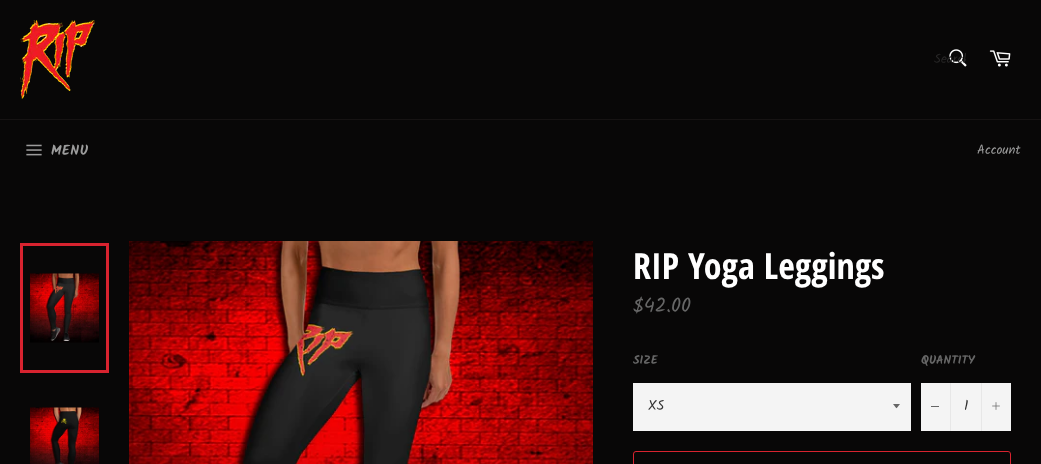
async function draw(canvas) {
  canvas.width = 1041
  canvas.height = 464
  const ctx = canvas.getContext('2d')
  ctx.miterLimit = 4
  ctx.fontKerning = 'normal'
  async function loadImage(src) {
    const img = new Image()
    img.src = src
    await img.decode()
    return img
  }

  ctx.fillStyle = '#080707'
  ctx.fillRect(0, 0, 1041, 464)
  ctx.drawImage(await loadImage('image0.png'), 20, 20, 75, 79)
  ctx.drawImage(await loadImage('image1.png'), 949, 49, 18, 18)
  ctx.save()
  ctx.beginPath()
  ctx.rect(934, 49, 32, 21)
  ctx.clip()
  ctx.font = '13px Kalam'
  ctx.fillStyle = '#272626'
  ctx.fillText('Search', 934, 63)
  ctx.restore()
  ctx.drawImage(await loadImage('image2.png'), 989, 50, 22, 17)
  ctx.fillStyle = '#161313'
  ctx.fillRect(0, 119, 1041, 1)
  ctx.drawImage(await loadImage('image3.png'), 26, 144, 16, 12)
  ctx.letterSpacing = '0.5px'
  ctx.font = 'bold 14px Kalam'
  ctx.fillStyle = '#9c9c9c'
  ctx.fillText('MENU', 51, 155)
  ctx.letterSpacing = '0px'
  ctx.font = '13px Kalam'
  ctx.fillText('Account', 977, 154)
  ctx.drawImage(await loadImage('image4.png'), 30, 273, 69, 70)
  ctx.strokeStyle = '#d8232f'
  ctx.lineWidth = 3
  ctx.strokeRect(21.5, 244.5, 86, 127)
  ctx.drawImage(await loadImage('image5.png'), 30, 407, 69, 57)
  ctx.drawImage(await loadImage('image6.png'), 129, 241, 464, 223)
  ctx.font = 'bold 36px Open Sans Condensed'
  ctx.fillStyle = '#fff'
  ctx.fillText('RIP Yoga Leggings', 633, 279)
  ctx.font = '20px Kalam'
  ctx.fillStyle = '#666'
  ctx.fillText('$42.00', 633, 312)
  ctx.font = 'bold 12px Kalam'
  ctx.fillText('SIZE', 633, 364)
  ctx.fillStyle = '#f4f4f4'
  ctx.fillRect(633, 383, 278, 48)
  ctx.fillStyle = '#666'
  ctx.beginPath()
  ctx.moveTo(893, 404)
  ctx.bezierCurveTo(897.5, 409.5, 895.5, 409.5, 900, 404)
  ctx.closePath()
  ctx.fill()
  ctx.font = '14px Kalam'
  ctx.fillStyle = '#333'
  ctx.fillText('XS', 648, 410)
  ctx.font = 'bold 12px Kalam'
  ctx.fillStyle = '#666'
  ctx.fillText('QUANTITY', 921, 364)
  ctx.fillStyle = '#f4f4f4'
  ctx.fillRect(921, 383, 90, 48)
  ctx.fillStyle = '#e7e7e7'
  ctx.fillRect(950, 383, 1, 48)
  ctx.fillStyle = '#666'
  ctx.fillRect(931, 406, 8, 1)
  ctx.font = '14px Kalam'
  ctx.fillStyle = '#333'
  ctx.fillText('1', 964, 410)
  ctx.fillStyle = '#e7e7e7'
  ctx.fillRect(981, 383, 1, 48)
  ctx.drawImage(await loadImage('image7.png'), 992, 402, 8, 8)
  ctx.beginPath()
  ctx.roundRect(633.5, 451.5, 377, 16, 2.5)
  ctx.lineWidth = 1
  ctx.stroke()
}

draw(document.querySelector('canvas'))
